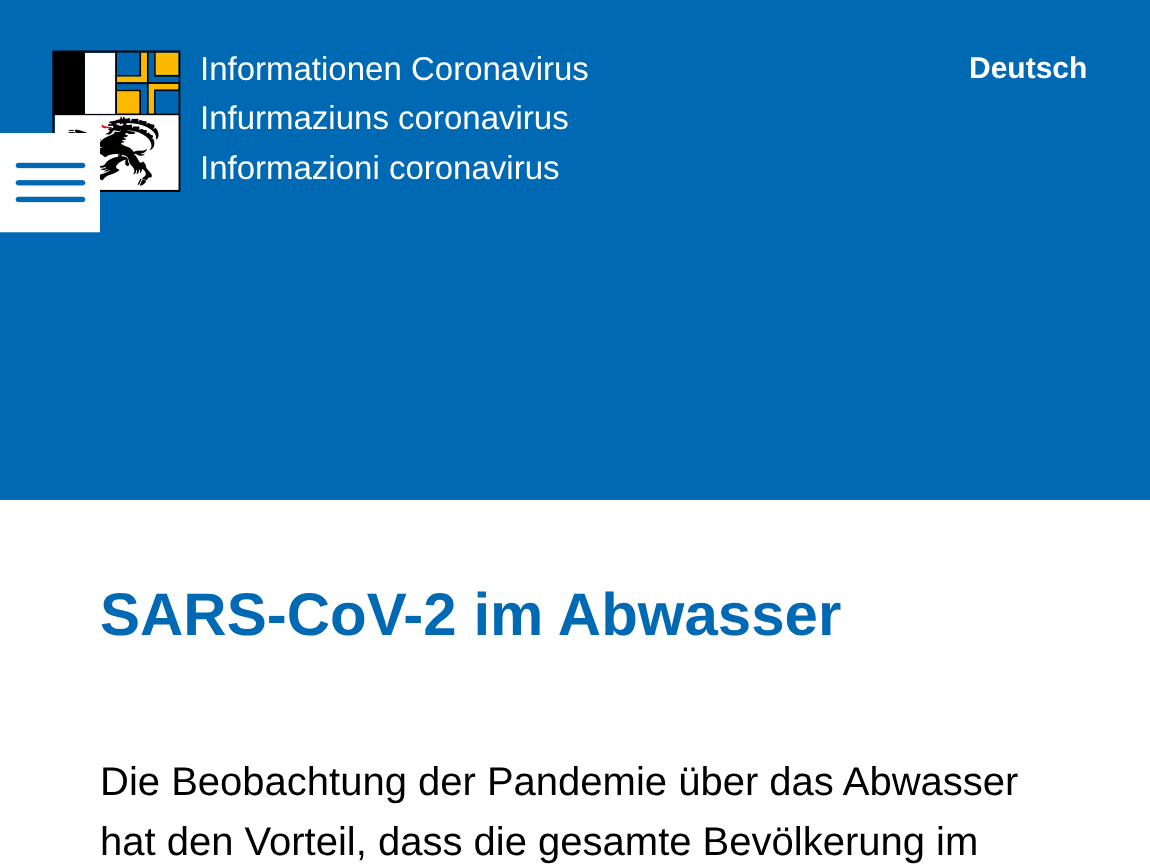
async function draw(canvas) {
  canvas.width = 1150
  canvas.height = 864
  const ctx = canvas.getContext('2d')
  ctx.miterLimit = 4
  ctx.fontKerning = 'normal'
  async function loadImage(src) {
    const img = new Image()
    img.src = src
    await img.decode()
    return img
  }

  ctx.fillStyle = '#fff'
  ctx.fillRect(0, 0, 1150, 864)
  ctx.fillStyle = '#0069b4'
  ctx.fillRect(0, 0, 1150, 500)
  ctx.drawImage(await loadImage('image0.png'), 52, 50, 129, 142)
  ctx.font = '33px Liberation Sans'
  ctx.fillStyle = '#fff'
  ctx.fillText('Informationen Coronavirus', 200, 80)
  ctx.fillText('Infurmaziuns coronavirus', 200, 129)
  ctx.fillText('Informazioni coronavirus', 200, 179)
  ctx.font = 'bold 30px Liberation Sans'
  ctx.fillText('Deutsch', 969, 78)
  ctx.fillStyle = '#0069b4'
  ctx.fillRect(52, 162, 48, 30)
  ctx.drawImage(await loadImage('image1.png'), 0, 133, 100, 100)
  ctx.font = 'bold 60px Liberation Sans'
  ctx.fillText('SARS-CoV-2 im Abwasser', 100, 635)
  ctx.font = '40px Liberation Sans'
  ctx.fillStyle = '#000'
  ctx.fillText('Die Beobachtung der Pandemie über das Abwasser', 100, 795)
  ctx.fillText('hat den Vorteil, dass die gesamte Bevölkerung im', 100, 855)
}

draw(document.querySelector('canvas'))
